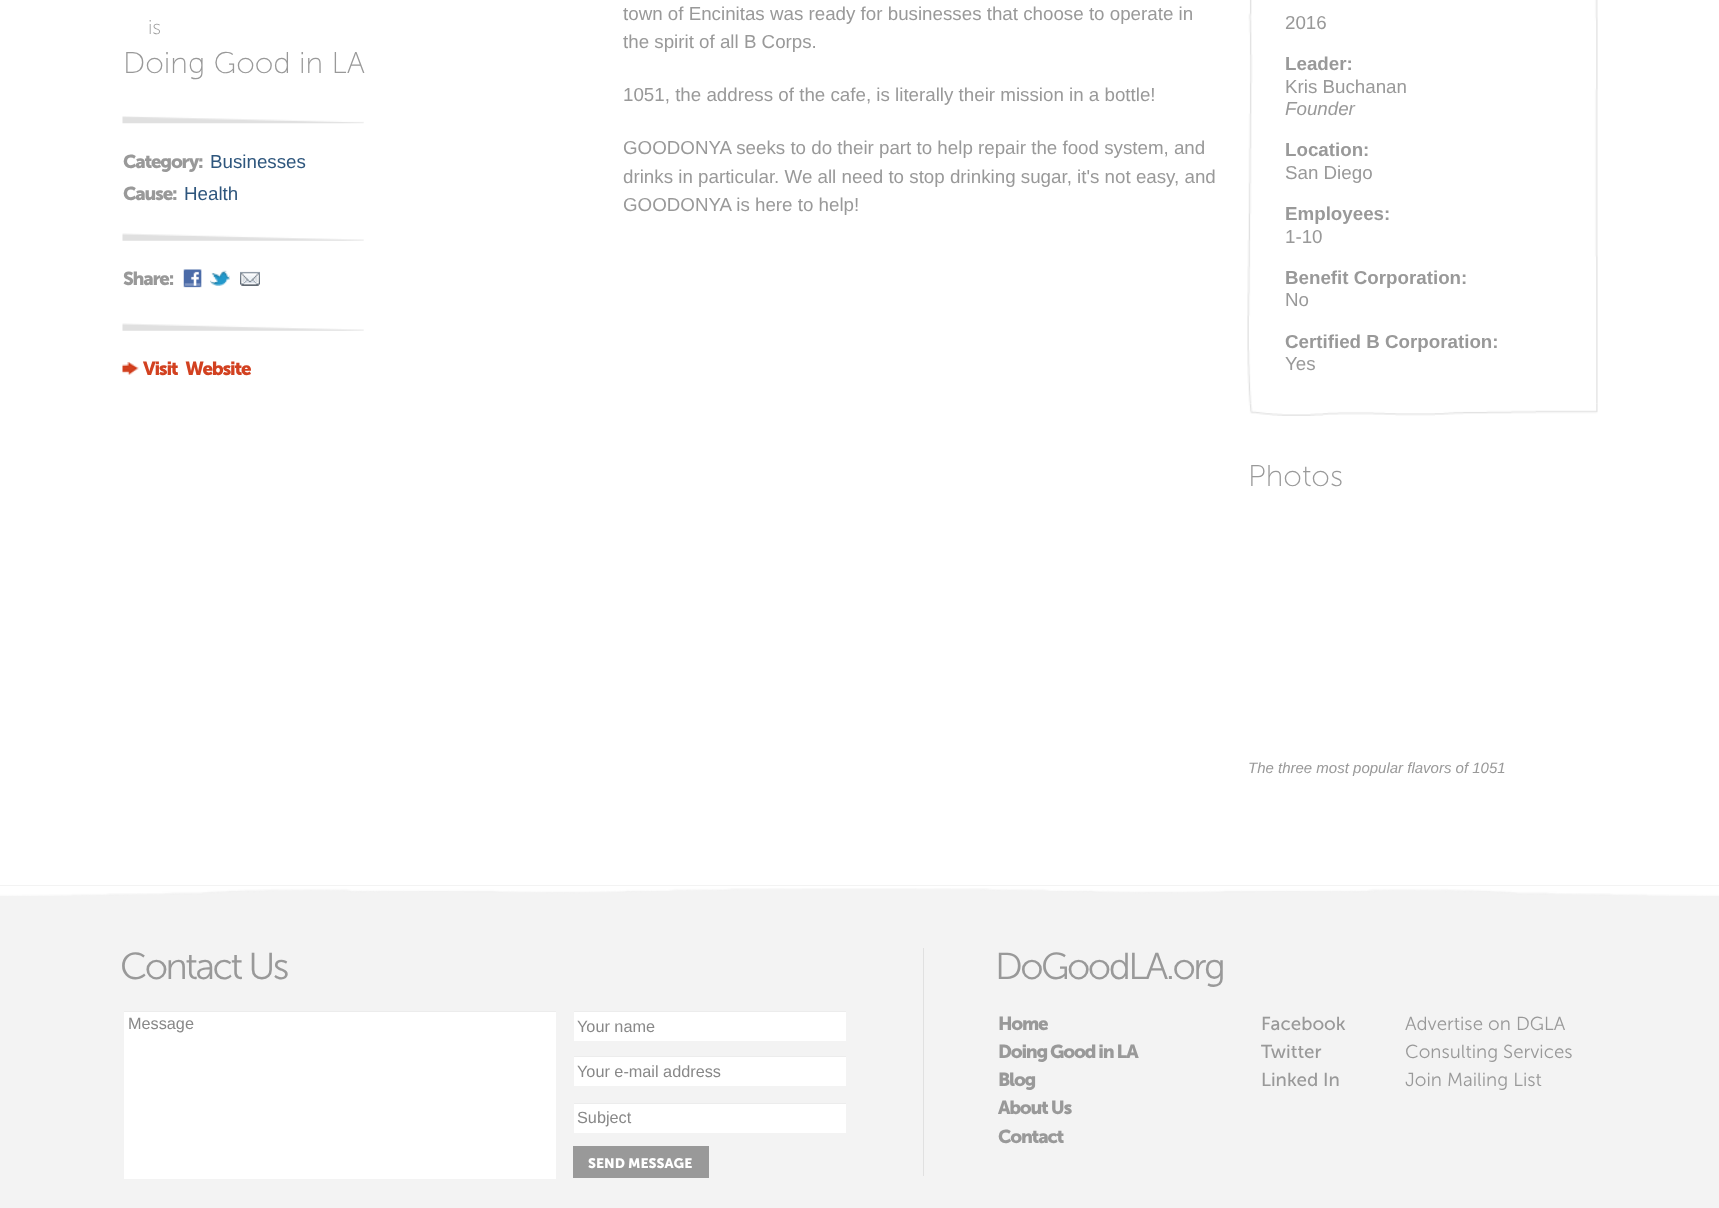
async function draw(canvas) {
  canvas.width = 1719
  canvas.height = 1208
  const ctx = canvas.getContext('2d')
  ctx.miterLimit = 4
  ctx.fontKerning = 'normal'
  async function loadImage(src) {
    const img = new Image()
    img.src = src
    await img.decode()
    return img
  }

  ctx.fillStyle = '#f3f3f3'
  ctx.fillRect(0, 0, 1719, 1208)
  ctx.fillStyle = '#fff'
  ctx.fillRect(0, 0, 1719, 885)
  ctx.font = '300 20px "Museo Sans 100"'
  ctx.fillStyle = '#999'
  ctx.fillText('is', 148, 34)
  ctx.font = '300 30px "Museo Sans 100"'
  ctx.fillText('Doing Good in LA', 123, 73)
  ctx.drawImage(await loadImage('image0.png'), 122, 116, 242, 8)
  ctx.letterSpacing = '-1.25px'
  ctx.font = 'bold 18.75px "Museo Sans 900"'
  ctx.fillText('Category:', 123, 168)
  ctx.letterSpacing = '0px'
  ctx.font = '18.75px Liberation Sans'
  ctx.fillStyle = '#2e567d'
  ctx.fillText('Businesses', 210, 168)
  ctx.letterSpacing = '-1.25px'
  ctx.font = 'bold 18.75px "Museo Sans 900"'
  ctx.fillStyle = '#999'
  ctx.fillText('Cause:', 123, 200)
  ctx.letterSpacing = '0px'
  ctx.font = '18.75px Liberation Sans'
  ctx.fillStyle = '#2e567d'
  ctx.fillText('Health', 184, 200)
  ctx.drawImage(await loadImage('image1.png'), 122, 233, 242, 8)
  ctx.letterSpacing = '-1.25px'
  ctx.font = 'bold 18.75px "Museo Sans 900"'
  ctx.fillStyle = '#999'
  ctx.fillText('Share:', 123, 285)
  ctx.drawImage(await loadImage('image2.png'), 183, 269, 19, 19)
  ctx.drawImage(await loadImage('image3.png'), 210, 270, 20, 16)
  ctx.drawImage(await loadImage('image4.png'), 240, 271, 20, 15)
  ctx.drawImage(await loadImage('image1.png'), 122, 323, 242, 8)
  ctx.drawImage(await loadImage('image5.png'), 122, 362, 17, 13)
  ctx.wordSpacing = '5px'
  ctx.fillStyle = '#d24120'
  ctx.fillText('Visit Website', 143, 375)
  ctx.letterSpacing = '0px'
  ctx.wordSpacing = '0px'
  ctx.font = '18.75px Liberation Sans'
  ctx.fillStyle = '#999'
  ctx.fillText('town of Encinitas was ready for businesses that choose to operate in', 623, 20)
  ctx.fillText('the spirit of all B Corps.', 623, 48)
  ctx.fillText('1051, the address of the cafe, is literally their mission in a bottle!', 623, 101)
  ctx.fillText('GOODONYA seeks to do their part to help repair the food system, and', 623, 154)
  ctx.fillText('drinks in particular. We all need to stop drinking sugar, it\'s not easy, and', 623, 183)
  ctx.fillText('GOODONYA is here to help!', 623, 211)
  ctx.drawImage(await loadImage('image6.png'), 1247, 0, 351, 416)
  ctx.fillText('2016', 1285, 29)
  ctx.font = 'bold 18.75px Liberation Sans'
  ctx.fillText('Leader:', 1285, 70)
  ctx.font = '18.75px Liberation Sans'
  ctx.fillText('Kris Buchanan', 1285, 93)
  ctx.font = 'italic 18.75px Liberation Sans'
  ctx.fillText('Founder', 1285, 115)
  ctx.font = 'bold 18.75px Liberation Sans'
  ctx.fillText('Location:', 1285, 156)
  ctx.font = '18.75px Liberation Sans'
  ctx.fillText('San Diego', 1285, 179)
  ctx.font = 'bold 18.75px Liberation Sans'
  ctx.fillText('Employees:', 1285, 220)
  ctx.font = '18.75px Liberation Sans'
  ctx.fillText('1-10', 1285, 243)
  ctx.font = 'bold 18.75px Liberation Sans'
  ctx.fillText('Benefit Corporation:', 1285, 284)
  ctx.font = '18.75px Liberation Sans'
  ctx.fillText('No', 1285, 306)
  ctx.font = 'bold 18.75px Liberation Sans'
  ctx.fillText('Certified B Corporation:', 1285, 348)
  ctx.font = '18.75px Liberation Sans'
  ctx.fillText('Yes', 1285, 370)
  ctx.font = '300 30px "Museo Sans 100"'
  ctx.fillText('Photos', 1248, 486)
  ctx.font = 'italic 15px Liberation Sans'
  ctx.fillText('The three most popular flavors of 1051', 1248, 773)
  ctx.drawImage(await loadImage('image7.png'), 0, 886, 1719, 10)
  ctx.letterSpacing = '-2.5px'
  ctx.font = '300 37.5px "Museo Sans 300"'
  ctx.fillText('Contact Us', 120, 979)
  ctx.fillStyle = '#fff'
  ctx.fillRect(124, 1012, 432, 167)
  ctx.fillStyle = '#ececec'
  ctx.fillRect(124, 1011, 432, 1)
  ctx.letterSpacing = '0px'
  ctx.font = '16.25px Liberation Sans'
  ctx.fillStyle = '#888'
  ctx.fillText('Message', 128, 1029)
  ctx.fillStyle = '#fff'
  ctx.fillRect(574, 1012, 272, 29)
  ctx.fillStyle = '#ececec'
  ctx.fillRect(574, 1011, 272, 1)
  ctx.fillStyle = '#888'
  ctx.fillText('Your name', 577, 1032)
  ctx.fillStyle = '#fff'
  ctx.fillRect(574, 1057, 272, 29)
  ctx.fillStyle = '#ececec'
  ctx.fillRect(574, 1056, 272, 1)
  ctx.fillStyle = '#888'
  ctx.fillText('Your e-mail address', 577, 1077)
  ctx.fillStyle = '#fff'
  ctx.fillRect(574, 1104, 272, 29)
  ctx.fillStyle = '#ececec'
  ctx.fillRect(574, 1103, 272, 1)
  ctx.fillStyle = '#888'
  ctx.fillText('Subject', 577, 1123)
  ctx.fillStyle = '#999'
  ctx.fillRect(573, 1146, 136, 32)
  ctx.font = 'bold 13.75px "Museo Sans 900"'
  ctx.fillStyle = '#fff'
  ctx.fillText('SEND MESSAGE', 588, 1168)
  ctx.fillStyle = '#e0e0e0'
  ctx.fillRect(923, 948, 1, 228)
  ctx.letterSpacing = '-2.5px'
  ctx.font = '300 37.5px "Museo Sans 300"'
  ctx.fillStyle = '#999'
  ctx.fillText('DoGoodLA.org', 995, 979)
  ctx.letterSpacing = '-1.25px'
  ctx.font = 'bold 18.75px "Museo Sans 900"'
  ctx.fillText('Home', 998, 1030)
  ctx.fillText('Doing Good in LA', 998, 1058)
  ctx.fillText('Blog', 998, 1086)
  ctx.fillText('About Us', 998, 1114)
  ctx.fillText('Contact', 998, 1143)
  ctx.letterSpacing = '0px'
  ctx.font = '18.75px "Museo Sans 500"'
  ctx.fillText('Facebook', 1261, 1030)
  ctx.fillText('Twitter', 1261, 1058)
  ctx.fillText('Linked In', 1261, 1086)
  ctx.font = '300 18.75px "Museo Sans 300"'
  ctx.fillText('Advertise on DGLA', 1405, 1030)
  ctx.fillText('Consulting Services', 1405, 1058)
  ctx.fillText('Join Mailing List', 1405, 1086)
}

draw(document.querySelector('canvas'))
